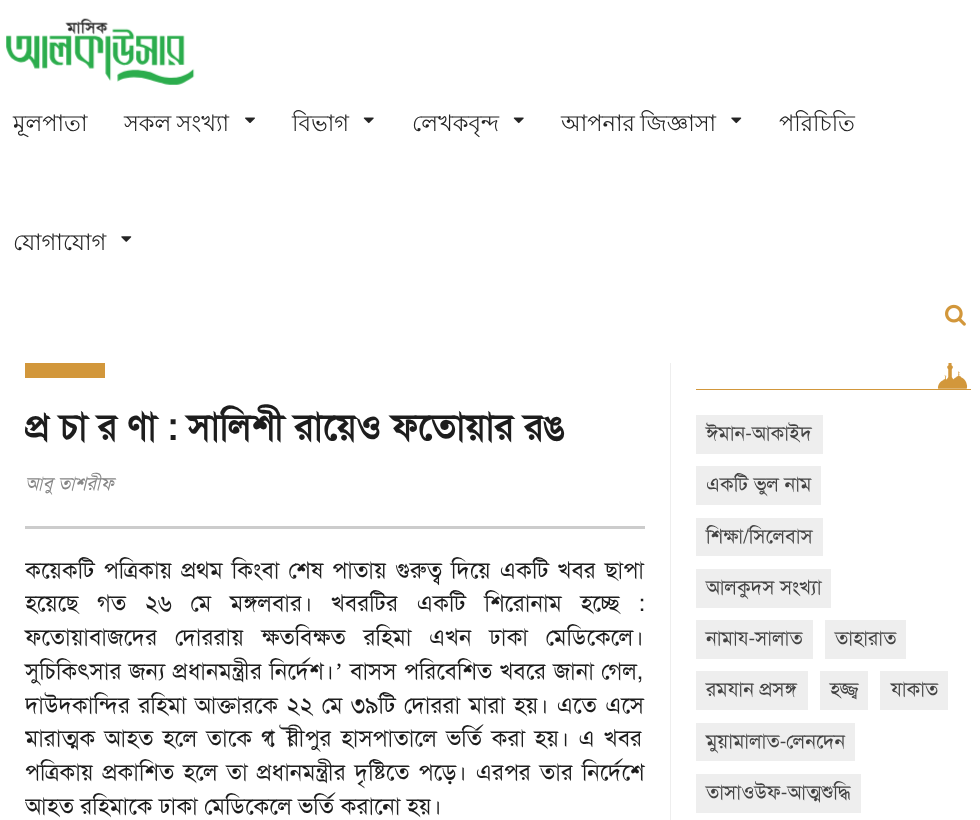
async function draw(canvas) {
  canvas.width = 980
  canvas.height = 820
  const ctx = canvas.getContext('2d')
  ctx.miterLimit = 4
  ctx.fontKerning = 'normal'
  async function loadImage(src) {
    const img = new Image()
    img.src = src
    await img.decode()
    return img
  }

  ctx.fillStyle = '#fff'
  ctx.fillRect(0, 0, 980, 820)
  ctx.drawImage(await loadImage('image0.png'), 6, 18, 189, 67)
  ctx.font = '22.5px Lohit Bengali'
  ctx.fillStyle = '#242424'
  ctx.fillText('মূলপাতা', 13, 131)
  ctx.wordSpacing = '-1px'
  ctx.fillText('সকল সংখ্যা', 124, 131)
  ctx.drawImage(await loadImage('image1.png'), 245, 117, 10, 6)
  ctx.wordSpacing = '0px'
  ctx.fillText('বিভাগ', 292, 131)
  ctx.drawImage(await loadImage('image2.png'), 363, 117, 11, 7)
  ctx.fillText('লেখকবৃন্দ', 412, 131)
  ctx.drawImage(await loadImage('image2.png'), 513, 117, 11, 7)
  ctx.wordSpacing = '-1px'
  ctx.fillText('আপনার জিজ্ঞাসা', 561, 131)
  ctx.drawImage(await loadImage('image3.png'), 731, 117, 11, 7)
  ctx.wordSpacing = '0px'
  ctx.fillText('পরিচিতি', 779, 131)
  ctx.fillText('যোগাযোগ', 13, 250)
  ctx.drawImage(await loadImage('image4.png'), 121, 236, 11, 6)
  ctx.drawImage(await loadImage('image5.png'), 945, 304, 21, 22)
  ctx.fillStyle = '#ccc'
  ctx.fillRect(25, 526, 620, 3)
  ctx.fillStyle = '#d2973b'
  ctx.fillRect(25, 363, 80, 15)
  ctx.font = 'bold 37.5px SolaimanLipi'
  ctx.fillStyle = '#1d1d1d'
  ctx.fillText('প্র চা র ণা : সালিশী রায়েও ফতোয়ার রঙ', 25, 440)
  ctx.font = 'italic 18.75px SolaimanLipi'
  ctx.fillStyle = '#868686'
  ctx.fillText('আবু তাশরীফ', 25, 490)
  ctx.save()
  ctx.beginPath()
  ctx.rect(25, 326, 620, 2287)
  ctx.clip()
  ctx.wordSpacing = '2.6px'
  ctx.font = '23.3px SolaimanLipi'
  ctx.fillStyle = '#1d1d1d'
  ctx.fillText('কয়েকটি পত্রিকায় প্রথম কিংবা শেষ পাতায় গুরুত্ব দিয়ে একটি খবর ছাপা', 25, 578)
  ctx.wordSpacing = '12.25px'
  ctx.fillText('হয়েছে গত ২৬ মে মঙ্গলবার। খবরটির একটি শিরোনাম হচ্ছে :', 25, 611)
  ctx.restore()
  ctx.wordSpacing = '11.25px'
  ctx.font = '23.3px SolaimanLipi'
  ctx.fillStyle = '#1d1d1d'
  ctx.fillText('ফতোয়াবাজদের দোররায় ক্ষতবিক্ষত রহিমা এখন ঢাকা মেডিকেলে।', 25, 645)
  ctx.wordSpacing = '1px'
  ctx.fillText('সুচিকিৎসার জন্য প্রধানমন্ত্রীর নির্দেশ।', 25, 679)
  ctx.wordSpacing = '0px'
  ctx.font = '23.3px Liberation Serif'
  ctx.fillText('’', 335, 679)
  ctx.wordSpacing = '1px'
  ctx.font = '23.3px SolaimanLipi'
  ctx.fillText('বাসস পরিবেশিত খবরে জানা গেল,', 350, 679)
  ctx.save()
  ctx.beginPath()
  ctx.rect(25, 326, 620, 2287)
  ctx.clip()
  ctx.wordSpacing = '2px'
  ctx.fillText('দাউদকান্দির রহিমা আক্তারকে ২২ মে ৩৯টি দোররা মারা হয়। এতে এসে', 25, 713)
  ctx.wordSpacing = '2.9px'
  ctx.fillText('মারাত্মক আহত হলে তাকে গৌরীপুর হাসপাতালে ভর্তি করা হয়। এ খবর', 25, 746)
  ctx.restore()
  ctx.wordSpacing = '2.5px'
  ctx.fillText('পত্রিকায় প্রকাশিত হলে তা প্রধানমন্ত্রীর দৃষ্টিতে পড়ে। এরপর তার নির্দেশে', 25, 780)
  ctx.save()
  ctx.beginPath()
  ctx.rect(25, 326, 620, 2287)
  ctx.clip()
  ctx.wordSpacing = '0px'
  ctx.fillText('আহত রহিমাকে ঢাকা মেডিকেলে ভর্তি করানো হয়।', 25, 814)
  ctx.restore()
  ctx.fillStyle = '#eee'
  ctx.fillRect(670, 363, 1, 457)
  ctx.fillStyle = '#d2973b'
  ctx.fillRect(696, 389, 275, 1)
  ctx.drawImage(await loadImage('image6.png'), 937, 363, 31, 26)
  ctx.fillStyle = '#eee'
  ctx.fillRect(696, 415, 127, 39)
  ctx.wordSpacing = '0px'
  ctx.font = '20px SolaimanLipi'
  ctx.fillStyle = '#424242'
  ctx.fillText('ঈমান-আকাইদ', 706, 440)
  ctx.fillStyle = '#eee'
  ctx.fillRect(696, 466, 125, 39)
  ctx.fillStyle = '#424242'
  ctx.fillText('একটি ভুল নাম', 706, 491)
  ctx.fillStyle = '#eee'
  ctx.fillRect(696, 518, 127, 38)
  ctx.fillStyle = '#424242'
  ctx.fillText('শিক্ষা/সিলেবাস', 706, 543)
  ctx.fillStyle = '#eee'
  ctx.fillRect(696, 569, 135, 39)
  ctx.fillStyle = '#424242'
  ctx.fillText('আলকুদস সংখ্যা', 706, 594)
  ctx.fillStyle = '#eee'
  ctx.fillRect(696, 620, 117, 39)
  ctx.fillStyle = '#424242'
  ctx.fillText('নামায-সালাত', 706, 645)
  ctx.fillStyle = '#eee'
  ctx.fillRect(825, 620, 81, 39)
  ctx.fillStyle = '#424242'
  ctx.fillText('তাহারাত', 835, 645)
  ctx.fillStyle = '#eee'
  ctx.fillRect(696, 671, 112, 39)
  ctx.fillStyle = '#424242'
  ctx.fillText('রমযান প্রসঙ্গ', 706, 696)
  ctx.fillStyle = '#eee'
  ctx.fillRect(820, 671, 48, 39)
  ctx.fillStyle = '#424242'
  ctx.fillText('হজ্জ্ব', 830, 696)
  ctx.fillStyle = '#eee'
  ctx.fillRect(880, 671, 68, 39)
  ctx.fillStyle = '#424242'
  ctx.fillText('যাকাত', 891, 696)
  ctx.fillStyle = '#eee'
  ctx.fillRect(696, 723, 159, 38)
  ctx.fillStyle = '#424242'
  ctx.fillText('মুয়ামালাত-লেনদেন', 706, 748)
  ctx.fillStyle = '#eee'
  ctx.fillRect(696, 774, 165, 39)
  ctx.fillStyle = '#424242'
  ctx.fillText('তাসাওউফ-আত্মশুদ্ধি', 706, 799)
}

draw(document.querySelector('canvas'))
